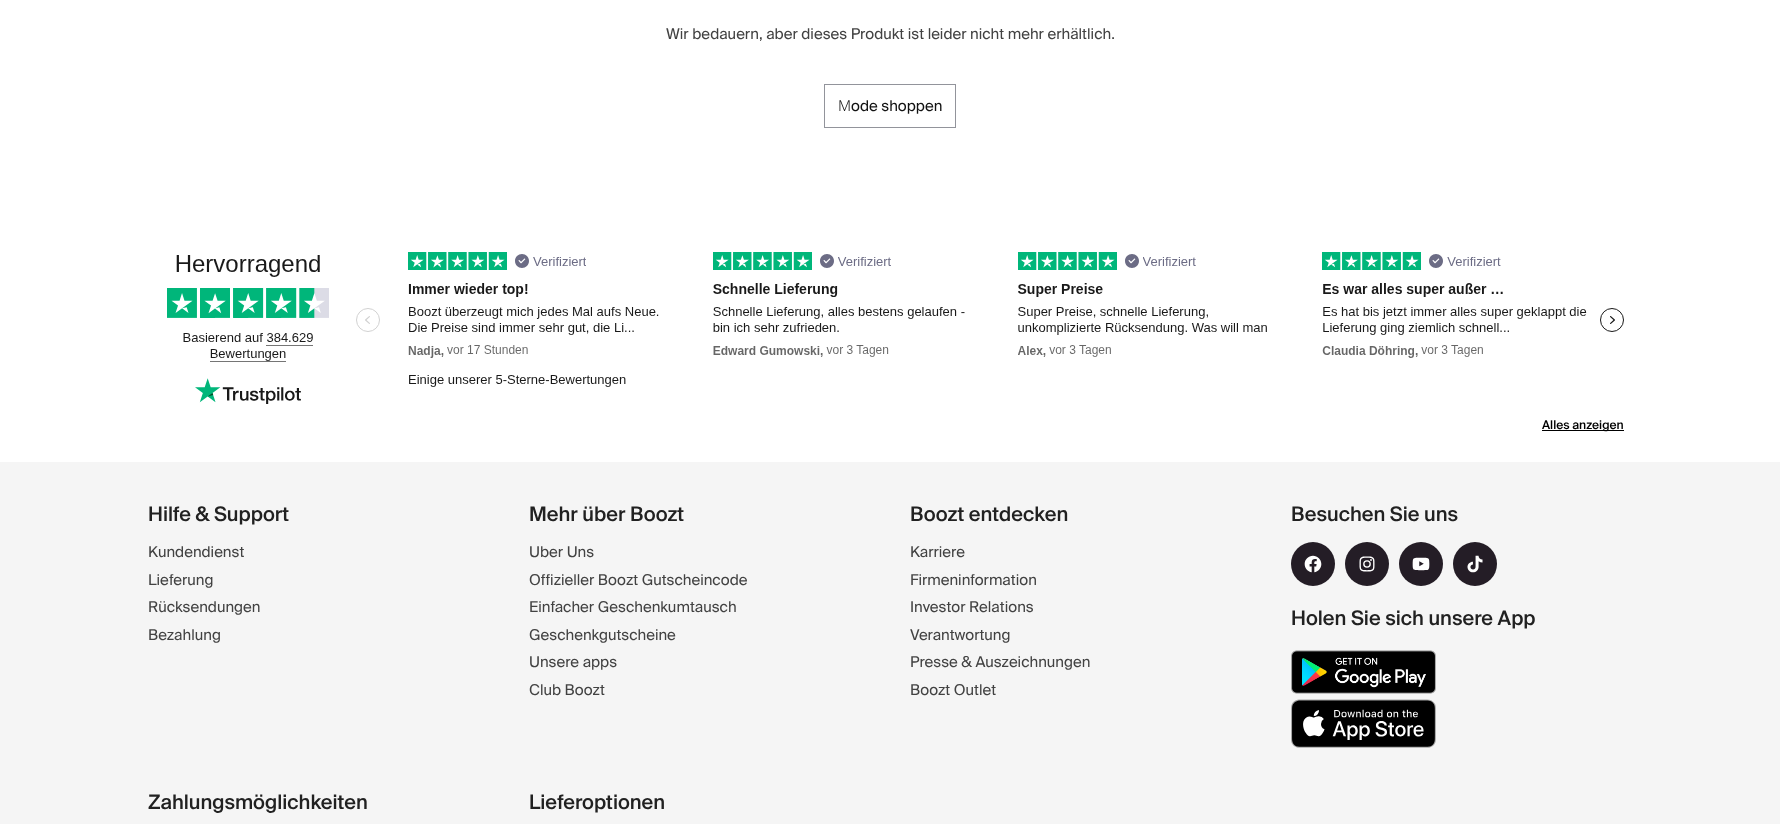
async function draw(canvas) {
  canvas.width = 1780
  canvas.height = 824
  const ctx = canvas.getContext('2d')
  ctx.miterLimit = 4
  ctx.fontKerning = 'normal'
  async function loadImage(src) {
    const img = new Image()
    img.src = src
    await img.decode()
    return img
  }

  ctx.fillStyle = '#fff'
  ctx.fillRect(0, 0, 1780, 824)
  ctx.font = '15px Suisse'
  ctx.fillStyle = '#424242'
  ctx.fillText('Wir bedauern, aber dieses Produkt ist leider nicht mehr erhältlich.', 666, 39)
  ctx.strokeStyle = '#92949b'
  ctx.strokeRect(824.5, 84.5, 131, 43)
  ctx.font = '300 15px Noto Sans'
  ctx.fillStyle = '#121212'
  ctx.fillText('M', 838, 111)
  ctx.font = '15px Suisse'
  ctx.fillText('ode shoppen', 851, 111)
  ctx.drawImage(await loadImage('image0.png'), 167, 252, 1457, 152)
  ctx.fillStyle = '#000'
  ctx.fillRect(1542, 430, 82, 1)
  ctx.font = '500 12px Suisse'
  ctx.fillText('Alles anzeigen', 1542, 429)
  ctx.fillStyle = '#f5f5f5'
  ctx.fillRect(0, 462, 1780, 362)
  ctx.font = '500 20px Suisse'
  ctx.fillStyle = '#212121'
  ctx.fillText('Hilfe & Support', 148, 521)
  ctx.font = '15px Suisse'
  ctx.fillStyle = '#424242'
  ctx.fillText('Kundendienst', 148, 557)
  ctx.fillText('Lieferung', 148, 585)
  ctx.fillText('Rücksendungen', 148, 612)
  ctx.fillText('Bezahlung', 148, 640)
  ctx.font = '500 20px Suisse'
  ctx.fillStyle = '#212121'
  ctx.fillText('Mehr über Boozt', 529, 521)
  ctx.font = '15px Suisse'
  ctx.fillStyle = '#424242'
  ctx.fillText('Uber Uns', 529, 557)
  ctx.fillText('Offizieller Boozt Gutscheincode', 529, 585)
  ctx.fillText('Einfacher Geschenkumtausch', 529, 612)
  ctx.fillText('Geschenkgutscheine', 529, 640)
  ctx.fillText('Unsere apps', 529, 667)
  ctx.fillText('Club Boozt', 529, 695)
  ctx.font = '500 20px Suisse'
  ctx.fillStyle = '#212121'
  ctx.fillText('Boozt entdecken', 910, 521)
  ctx.font = '15px Suisse'
  ctx.fillStyle = '#424242'
  ctx.fillText('Karriere', 910, 557)
  ctx.fillText('Firmeninformation', 910, 585)
  ctx.fillText('Investor Relations', 910, 612)
  ctx.fillText('Verantwortung', 910, 640)
  ctx.fillText('Presse & Auszeichnungen', 910, 667)
  ctx.fillText('Boozt Outlet', 910, 695)
  ctx.font = '500 20px Suisse'
  ctx.fillStyle = '#212121'
  ctx.fillText('Besuchen Sie uns', 1291, 521)
  ctx.fillStyle = '#241d26'
  ctx.beginPath()
  ctx.arc(1313, 564, 22, 0, 2 * Math.PI)
  ctx.fill()
  ctx.drawImage(await loadImage('image1.png'), 1304, 555, 18, 18)
  ctx.beginPath()
  ctx.arc(1367, 564, 22, 0, 2 * Math.PI)
  ctx.fill()
  ctx.drawImage(await loadImage('image2.png'), 1359, 556, 16, 16)
  ctx.beginPath()
  ctx.arc(1421, 564, 22, 0, 2 * Math.PI)
  ctx.fill()
  ctx.drawImage(await loadImage('image3.png'), 1412, 557, 18, 14)
  ctx.beginPath()
  ctx.arc(1475, 564, 22, 0, 2 * Math.PI)
  ctx.fill()
  ctx.drawImage(await loadImage('image4.png'), 1467, 555, 16, 18)
  ctx.fillStyle = '#212121'
  ctx.fillText('Holen Sie sich unsere App', 1291, 625)
  ctx.drawImage(await loadImage('image5.png'), 1291, 650, 145, 44)
  ctx.drawImage(await loadImage('image6.png'), 1291, 699, 145, 49)
  ctx.fillText('Zahlungsmöglichkeiten', 148, 809)
  ctx.fillText('Lieferoptionen', 529, 809)
}

draw(document.querySelector('canvas'))
